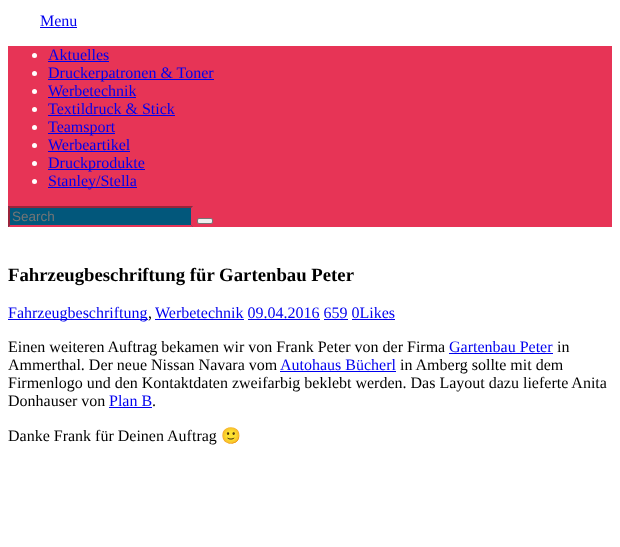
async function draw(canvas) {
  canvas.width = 620
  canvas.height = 547
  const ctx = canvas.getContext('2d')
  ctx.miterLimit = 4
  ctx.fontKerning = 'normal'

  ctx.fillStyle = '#fff'
  ctx.fillRect(0, 0, 620, 547)
  ctx.font = '16px Liberation Serif'
  ctx.fillStyle = '#00e'
  ctx.fillText('Menu', 40, 26)
  ctx.fillRect(40, 27, 37, 1)
  ctx.fillStyle = '#e73456'
  ctx.fillRect(8, 46, 604, 181)
  ctx.fillStyle = '#fff'
  ctx.beginPath()
  ctx.arc(34.5, 55.5, 2.5, 0, 2 * Math.PI)
  ctx.fill()
  ctx.fillStyle = '#00e'
  ctx.fillText('Aktuelles', 48, 60)
  ctx.fillRect(48, 61, 61, 1)
  ctx.fillStyle = '#fff'
  ctx.beginPath()
  ctx.arc(34.5, 73.5, 2.5, 0, 2 * Math.PI)
  ctx.fill()
  ctx.fillStyle = '#00e'
  ctx.fillRect(48, 79, 166, 1)
  ctx.fillText('Druckerpatronen & Toner', 48, 78)
  ctx.fillStyle = '#fff'
  ctx.beginPath()
  ctx.arc(34.5, 91.5, 2.5, 0, 2 * Math.PI)
  ctx.fill()
  ctx.fillStyle = '#00e'
  ctx.fillText('Werbetechnik', 48, 96)
  ctx.fillRect(48, 97, 88, 1)
  ctx.fillStyle = '#fff'
  ctx.beginPath()
  ctx.arc(34.5, 109.5, 2.5, 0, 2 * Math.PI)
  ctx.fill()
  ctx.fillStyle = '#00e'
  ctx.fillText('Textildruck & Stick', 48, 114)
  ctx.fillRect(48, 115, 127, 1)
  ctx.fillStyle = '#fff'
  ctx.beginPath()
  ctx.arc(34.5, 127.5, 2.5, 0, 2 * Math.PI)
  ctx.fill()
  ctx.fillStyle = '#00e'
  ctx.fillRect(48, 133, 67, 1)
  ctx.fillText('Teamsport', 48, 132)
  ctx.fillStyle = '#fff'
  ctx.beginPath()
  ctx.arc(34.5, 145.5, 2.5, 0, 2 * Math.PI)
  ctx.fill()
  ctx.fillStyle = '#00e'
  ctx.fillText('Werbeartikel', 48, 150)
  ctx.fillRect(48, 151, 82, 1)
  ctx.fillStyle = '#fff'
  ctx.beginPath()
  ctx.arc(34.5, 163.5, 2.5, 0, 2 * Math.PI)
  ctx.fill()
  ctx.fillStyle = '#00e'
  ctx.fillRect(48, 169, 97, 1)
  ctx.fillText('Druckprodukte', 48, 168)
  ctx.fillStyle = '#fff'
  ctx.beginPath()
  ctx.arc(34.5, 181.5, 2.5, 0, 2 * Math.PI)
  ctx.fill()
  ctx.fillStyle = '#00e'
  ctx.fillRect(48, 187, 89, 1)
  ctx.fillText('Stanley/Stella', 48, 186)
  ctx.fillStyle = '#02577b'
  ctx.fillRect(8, 206, 185, 21)
  ctx.fillStyle = '#9a2339'
  ctx.beginPath()
  ctx.moveTo(8, 206)
  ctx.lineTo(193, 206)
  ctx.lineTo(191, 208)
  ctx.lineTo(10, 208)
  ctx.closePath()
  ctx.fill()
  ctx.fillStyle = '#e73456'
  ctx.beginPath()
  ctx.moveTo(193, 206)
  ctx.lineTo(193, 227)
  ctx.lineTo(191, 225)
  ctx.lineTo(191, 208)
  ctx.closePath()
  ctx.fill()
  ctx.beginPath()
  ctx.moveTo(193, 227)
  ctx.lineTo(8, 227)
  ctx.lineTo(10, 225)
  ctx.lineTo(191, 225)
  ctx.closePath()
  ctx.fill()
  ctx.fillStyle = '#9a2339'
  ctx.beginPath()
  ctx.moveTo(8, 227)
  ctx.lineTo(8, 206)
  ctx.lineTo(10, 208)
  ctx.lineTo(10, 225)
  ctx.closePath()
  ctx.fill()
  ctx.font = '13.5px Liberation Sans'
  ctx.fillStyle = '#757575'
  ctx.fillText('Search', 12, 221)
  ctx.fillStyle = '#efefef'
  ctx.beginPath()
  ctx.roundRect(197.5, 218.5, 15, 5, 1.5)
  ctx.fill()
  ctx.strokeStyle = '#767676'
  ctx.stroke()
  ctx.font = 'bold 18.75px Liberation Serif'
  ctx.fillStyle = '#000'
  ctx.fillText('Fahrzeugbeschriftung für Gartenbau Peter', 8, 281)
  ctx.fillStyle = '#00e'
  ctx.fillRect(8, 319, 140, 1)
  ctx.font = '16px Liberation Serif'
  ctx.fillText('Fahrzeugbeschriftung', 8, 318)
  ctx.fillStyle = '#000'
  ctx.fillText(',', 148, 318)
  ctx.fillStyle = '#00e'
  ctx.fillRect(155, 319, 89, 1)
  ctx.fillText('Werbetechnik 09.04.2016 659 0Likes', 155, 318)
  ctx.fillRect(248, 319, 72, 1)
  ctx.fillRect(324, 319, 24, 1)
  ctx.fillRect(352, 319, 43, 1)
  ctx.fillStyle = '#000'
  ctx.fillText('Einen weiteren Auftrag bekamen wir von Frank Peter von der Firma', 8, 352)
  ctx.fillStyle = '#00e'
  ctx.fillText('Gartenbau Peter', 449, 352)
  ctx.fillRect(449, 353, 104, 1)
  ctx.fillStyle = '#000'
  ctx.fillText('in', 557, 352)
  ctx.fillText('Ammerthal. Der neue Nissan Navara vom', 8, 370)
  ctx.fillStyle = '#00e'
  ctx.fillText('Autohaus Bücherl', 280, 370)
  ctx.fillRect(280, 371, 116, 1)
  ctx.fillStyle = '#000'
  ctx.fillText('in Amberg sollte mit dem', 400, 370)
  ctx.fillText('Firmenlogo und den Kontaktdaten zweifarbig beklebt werden. Das Layout dazu lieferte Anita', 8, 388)
  ctx.fillText('Donhauser von', 8, 406)
  ctx.fillStyle = '#00e'
  ctx.fillText('Plan B', 109, 406)
  ctx.fillRect(109, 407, 43, 1)
  ctx.fillStyle = '#000'
  ctx.fillText('.', 152, 406)
  ctx.fillText('Danke Frank für Deinen Auftrag', 8, 441)
  ctx.font = '16px Noto Color Emoji'
  ctx.fillText('🙂', 221, 441)
}

draw(document.querySelector('canvas'))
